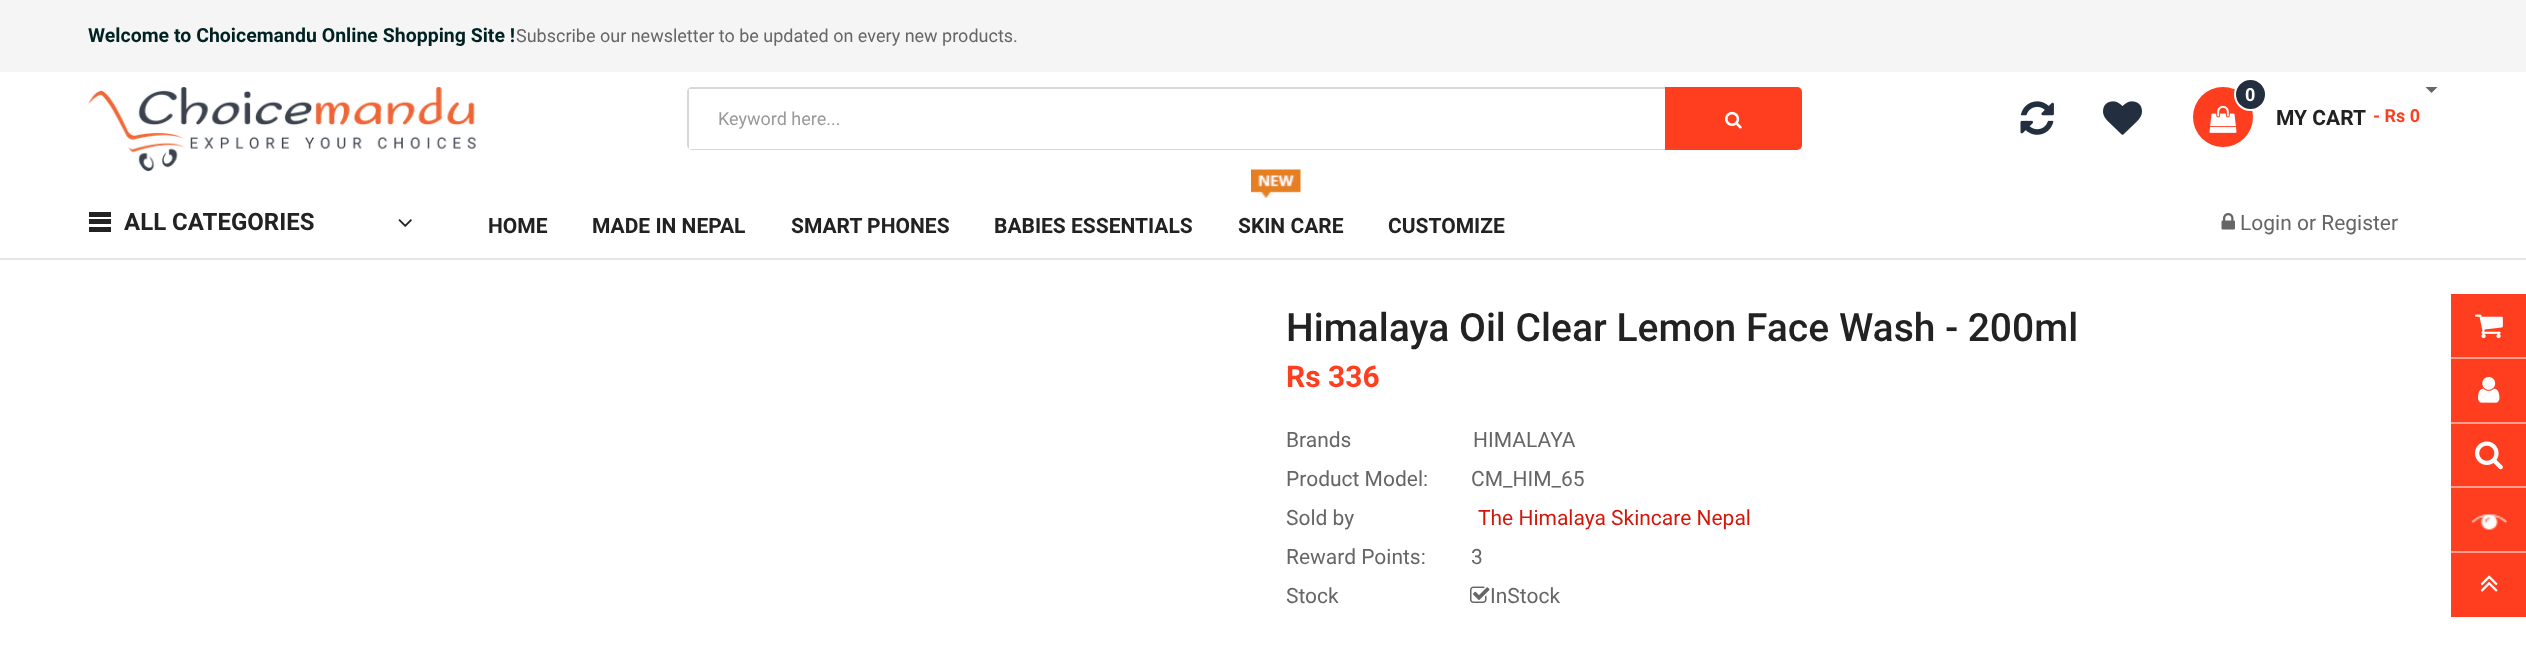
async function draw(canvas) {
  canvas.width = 2526
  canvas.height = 659
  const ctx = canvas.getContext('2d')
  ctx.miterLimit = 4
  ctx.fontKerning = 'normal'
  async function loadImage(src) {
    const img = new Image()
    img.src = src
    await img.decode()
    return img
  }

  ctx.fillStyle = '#fff'
  ctx.fillRect(0, 0, 2526, 659)
  ctx.fillStyle = '#f5f5f5'
  ctx.fillRect(0, 0, 2526, 72)
  ctx.font = 'bold 19.5px Roboto'
  ctx.fillStyle = '#022'
  ctx.fillText('Welcome to Choicemandu Online Shopping Site !', 88, 42)
  ctx.font = '18px Roboto'
  ctx.fillStyle = '#666'
  ctx.fillText('Subscribe our newsletter to be updated on every new products.', 516, 42)
  ctx.drawImage(await loadImage('image0.png'), 88, 87, 388, 84)
  ctx.beginPath()
  ctx.roundRect(688, 88, 1113, 61, 4)
  ctx.strokeStyle = '#d7d7d7'
  ctx.lineWidth = 2
  ctx.stroke()
  ctx.fillStyle = '#fff'
  ctx.fillRect(689, 89, 976, 60)
  ctx.fillStyle = '#999'
  ctx.fillText('Keyword here...', 718, 125)
  ctx.fillStyle = '#ff3e20'
  ctx.beginPath()
  ctx.roundRect(1665, 87, 137, 63, [0, 5, 5, 0])
  ctx.fill()
  ctx.drawImage(await loadImage('image1.png'), 1725, 111, 17, 18)
  ctx.drawImage(await loadImage('image2.png'), 2020, 101, 34, 34)
  ctx.drawImage(await loadImage('image3.png'), 2103, 101, 39, 34)
  ctx.beginPath()
  ctx.arc(2223, 117, 30, 0, 2 * Math.PI)
  ctx.fill()
  ctx.drawImage(await loadImage('image4.png'), 2209, 105, 28, 28)
  ctx.fillStyle = '#232f3e'
  ctx.beginPath()
  ctx.arc(2250.5, 94.5, 15.5, 0, 2 * Math.PI)
  ctx.fill()
  ctx.strokeStyle = '#fff'
  ctx.stroke()
  ctx.font = 'bold 18px Roboto'
  ctx.fillStyle = '#fff'
  ctx.fillText('0', 2245, 101)
  ctx.fillStyle = '#ff3e20'
  ctx.fillText('- Rs 0', 2373, 122)
  ctx.font = 'bold 21px Roboto'
  ctx.fillStyle = '#222'
  ctx.fillText('MY CART', 2276, 125)
  ctx.fillStyle = '#666'
  ctx.beginPath()
  ctx.moveTo(2425.5, 87)
  ctx.lineTo(2437.5, 87)
  ctx.lineTo(2431.5, 93)
  ctx.closePath()
  ctx.fill()
  ctx.fillStyle = '#e5e5e5'
  ctx.fillRect(0, 258, 2526, 2)
  ctx.fillStyle = '#222'
  ctx.fillRect(89, 212, 22, 5)
  ctx.fillRect(89, 219, 22, 5)
  ctx.fillRect(89, 227, 22, 5)
  ctx.font = 'bold 24px Roboto'
  ctx.fillText('ALL CATEGORIES', 124, 230)
  ctx.drawImage(await loadImage('image5.png'), 398, 219, 14, 8)
  ctx.font = 'bold 21px Roboto'
  ctx.fillText('HOME', 488, 233)
  ctx.fillText('MADE IN NEPAL', 592, 233)
  ctx.fillText('SMART PHONES', 791, 233)
  ctx.fillText('BABIES ESSENTIALS', 994, 233)
  ctx.drawImage(await loadImage('image6.png'), 1251, 169, 50, 29)
  ctx.fillText('SKIN CARE', 1238, 233)
  ctx.fillText('CUSTOMIZE', 1388, 233)
  ctx.drawImage(await loadImage('image7.png'), 2221, 213, 14, 17)
  ctx.font = '21px Roboto'
  ctx.fillStyle = '#666'
  ctx.fillText('Login or Register', 2240, 230)
  ctx.font = '500 39px Roboto'
  ctx.fillStyle = '#222'
  ctx.fillText('Himalaya Oil Clear Lemon Face Wash - 200ml', 1286, 341)
  ctx.font = 'bold 30px Roboto'
  ctx.fillStyle = '#ff3e20'
  ctx.fillText('Rs 336', 1286, 387)
  ctx.font = '21px Roboto'
  ctx.fillStyle = '#666'
  ctx.fillText('Brands', 1286, 447)
  ctx.fillText('HIMALAYA', 1473, 447)
  ctx.fillText('Product Model:', 1286, 486)
  ctx.fillText('CM_HIM_65', 1471, 486)
  ctx.fillText('Sold by', 1286, 525)
  ctx.fillStyle = '#d2180b'
  ctx.fillText('The Himalaya Skincare Nepal', 1478, 525)
  ctx.fillStyle = '#666'
  ctx.fillText('Reward Points:', 1286, 564)
  ctx.fillText('3', 1471, 564)
  ctx.fillText('Stock', 1286, 603)
  ctx.drawImage(await loadImage('image8.png'), 1470, 586, 20, 17)
  ctx.fillText('InStock', 1490, 603)
  ctx.fillStyle = '#ff3e20'
  ctx.fillRect(2451, 294, 75, 323)
  ctx.fillStyle = '#ff9f90'
  ctx.fillRect(2451, 357, 75, 2)
  ctx.drawImage(await loadImage('image9.png'), 2475, 314, 28, 25)
  ctx.fillRect(2451, 422, 75, 2)
  ctx.drawImage(await loadImage('image10.png'), 2478, 376, 22, 27)
  ctx.fillRect(2451, 486, 75, 2)
  ctx.drawImage(await loadImage('image11.png'), 2475, 441, 28, 29)
  ctx.fillRect(2451, 551, 75, 2)
  ctx.drawImage(await loadImage('image12.png'), 2471, 514, 36, 16)
  ctx.drawImage(await loadImage('image13.png'), 2480, 575, 18, 17)
}

draw(document.querySelector('canvas'))
